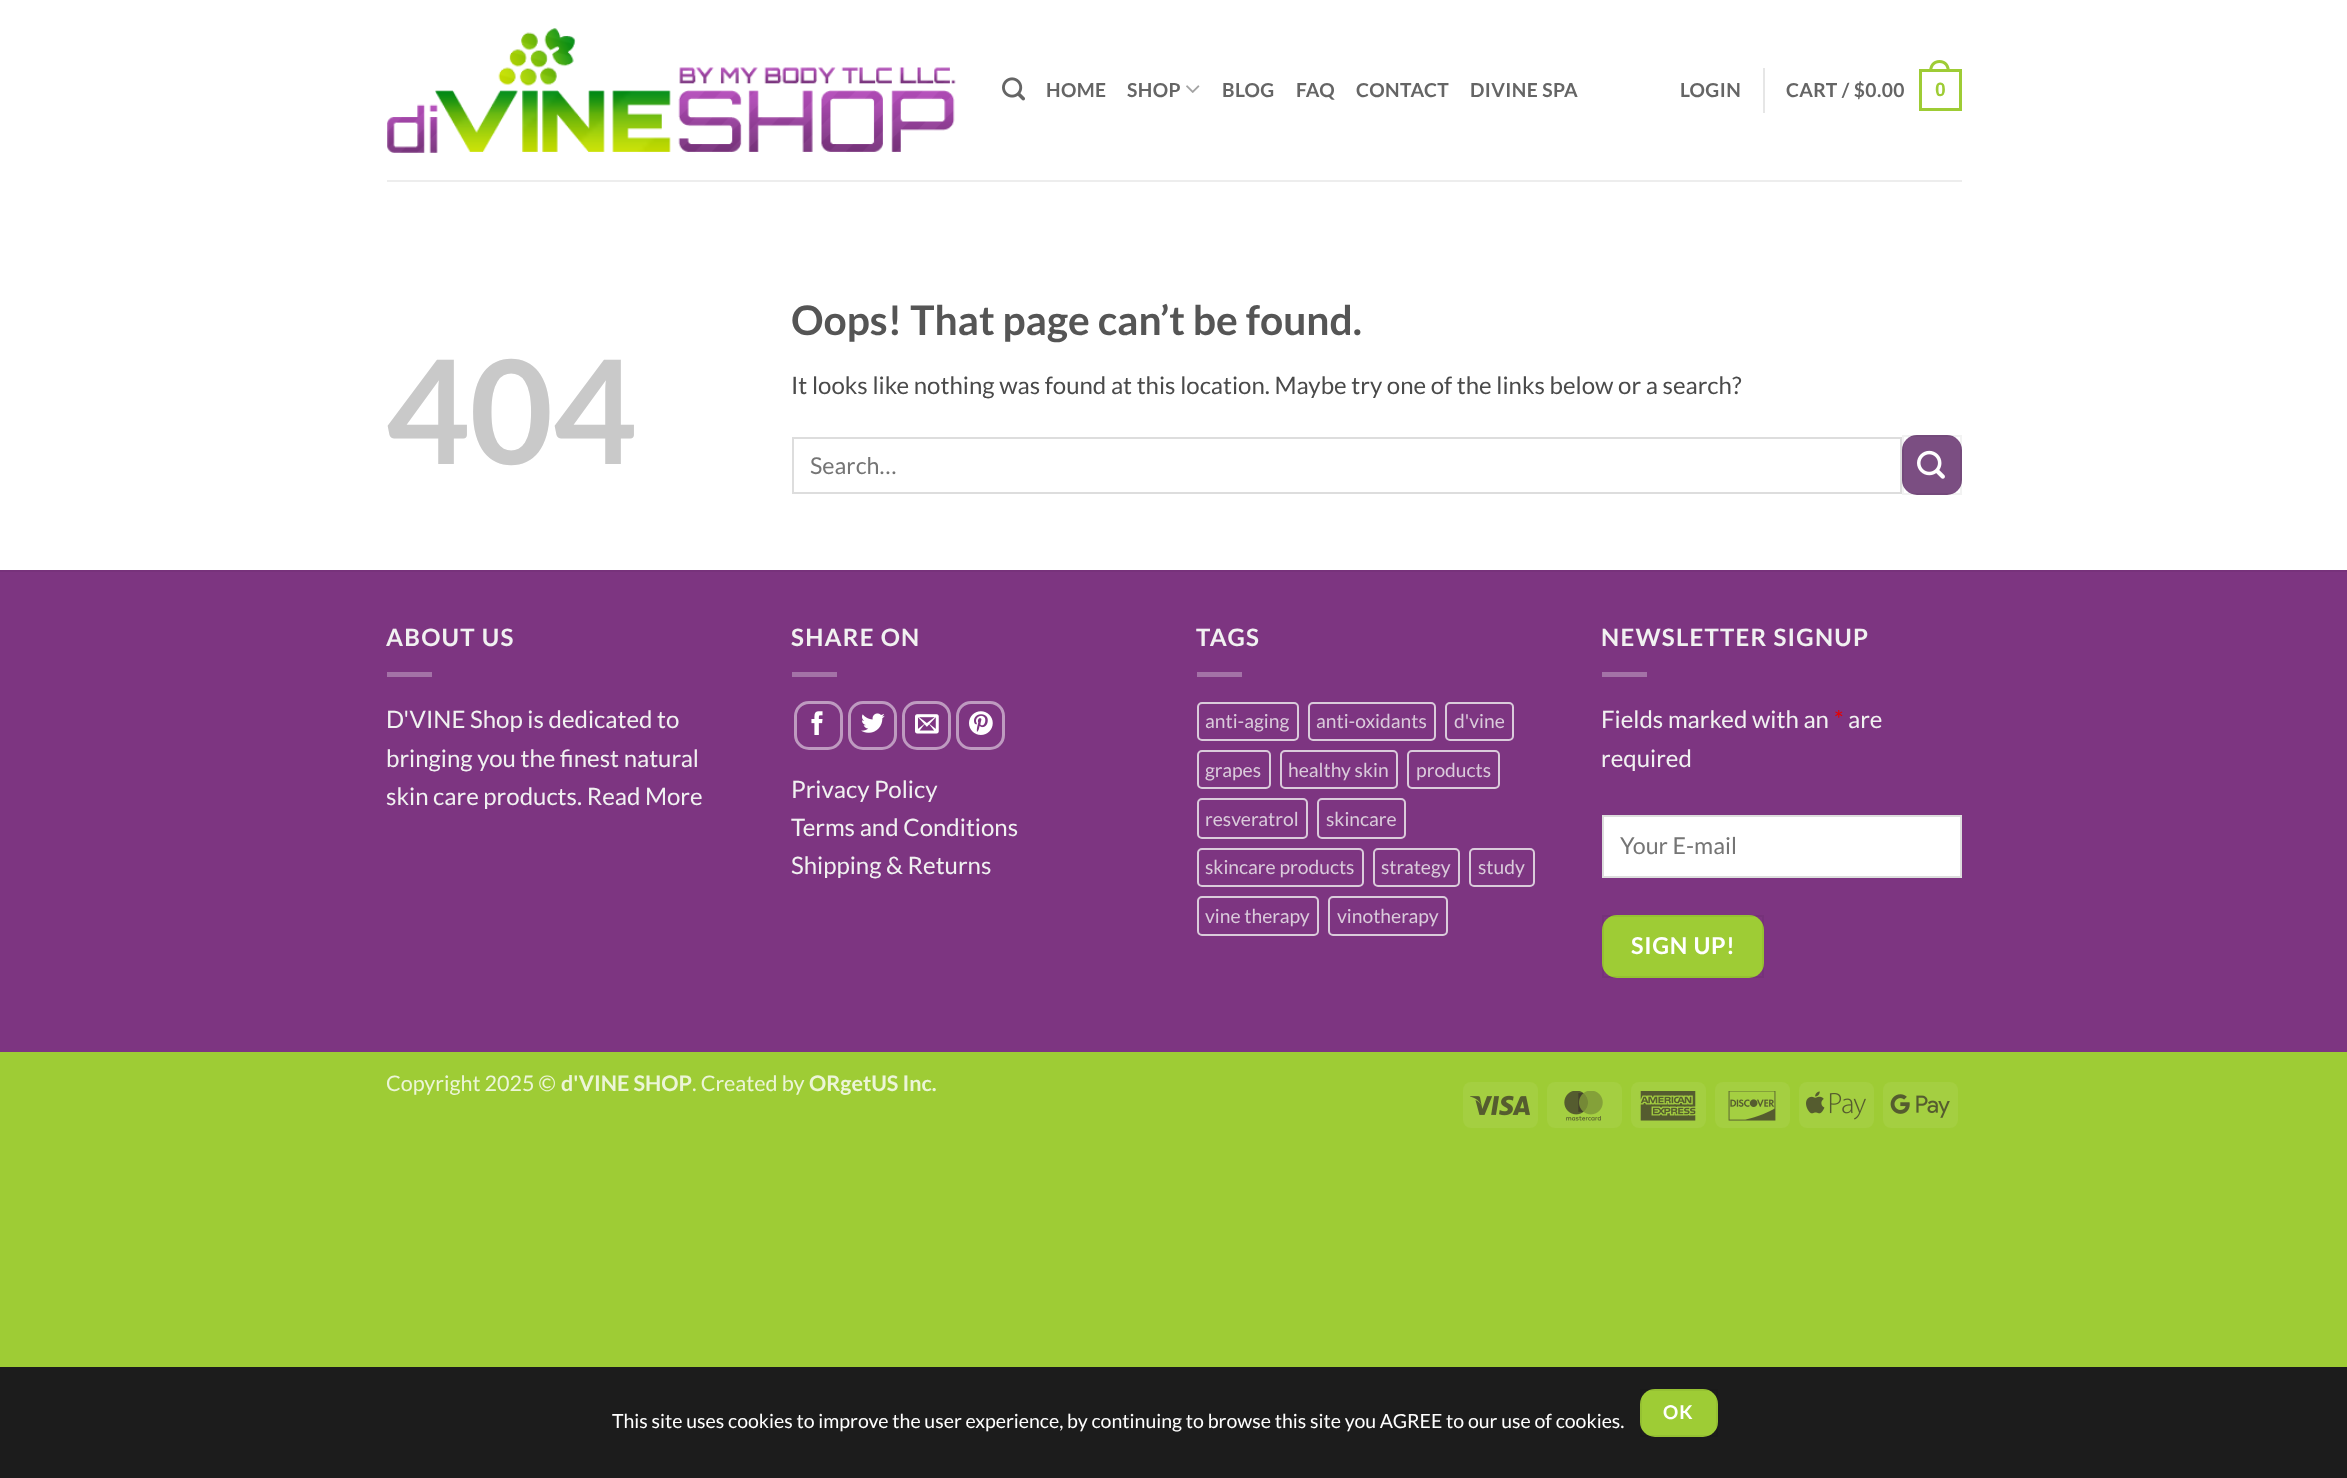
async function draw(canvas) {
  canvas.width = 2347
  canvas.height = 1478
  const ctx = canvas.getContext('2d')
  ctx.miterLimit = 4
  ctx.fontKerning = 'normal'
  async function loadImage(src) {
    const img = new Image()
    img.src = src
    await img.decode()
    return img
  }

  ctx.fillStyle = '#9ecc35'
  ctx.fillRect(0, 0, 2347, 1478)
  ctx.fillStyle = '#fff'
  ctx.fillRect(0, 0, 2347, 570)
  ctx.drawImage(await loadImage('image0.png'), 387, 28, 569, 125)
  ctx.drawImage(await loadImage('image1.png'), 1002, 77, 23, 24)
  ctx.letterSpacing = '0.4px'
  ctx.font = 'bold 19.25px Lato'
  ctx.fillStyle = '#656565'
  ctx.fillText('HOME', 1046, 97)
  ctx.fillText('SHOP', 1127, 97)
  ctx.drawImage(await loadImage('image2.png'), 1186, 85, 14, 8)
  ctx.fillText('BLOG', 1222, 97)
  ctx.fillText('FAQ', 1296, 97)
  ctx.fillText('CONTACT', 1356, 97)
  ctx.fillText('DIVINE SPA', 1470, 97)
  ctx.fillText('LOGIN', 1680, 97)
  ctx.fillStyle = '#e6e6e6'
  ctx.fillRect(1763, 68, 2, 45)
  ctx.fillStyle = '#656565'
  ctx.fillText('CART / $0.00', 1786, 97)
  ctx.strokeStyle = '#9ecc35'
  ctx.lineWidth = 3
  ctx.strokeRect(1920.5, 70.5, 40, 39)
  ctx.fillStyle = '#9ecc35'
  ctx.beginPath()
  ctx.moveTo(1939.5, 60)
  ctx.bezierCurveTo(1946.5, 60, 1950, 65.5, 1950, 72)
  ctx.lineTo(1929, 72)
  ctx.bezierCurveTo(1929, 65.5, 1932.5, 60, 1939.5, 60)
  ctx.closePath()
  ctx.moveTo(1939.5, 63)
  ctx.bezierCurveTo(1945, 63, 1947, 67.5, 1947, 72)
  ctx.lineTo(1932, 72)
  ctx.bezierCurveTo(1932, 67.5, 1934, 63, 1939.5, 63)
  ctx.closePath()
  ctx.fill('evenodd')
  ctx.font = 'bold 19.25px Liberation Sans'
  ctx.fillText('0', 1935, 96)
  ctx.fillStyle = '#ededed'
  ctx.fillRect(387, 180, 1575, 2)
  ctx.letterSpacing = '0px'
  ctx.font = 'bold 144px Lato'
  ctx.fillStyle = '#c9c9c9'
  ctx.fillText('404', 386, 464)
  ctx.font = 'bold 40.75px Lato'
  ctx.fillStyle = '#555'
  ctx.fillText('Oops! That page can’t be found.', 791, 335)
  ctx.font = '24px Lato'
  ctx.fillStyle = '#4a4a4a'
  ctx.fillText('It looks like nothing was found at this location. Maybe try one of the links below or a search?', 791, 394)
  ctx.strokeStyle = '#ddd'
  ctx.lineWidth = 2
  ctx.strokeRect(793, 438, 1108, 55)
  ctx.font = '23.25px Lato'
  ctx.fillStyle = '#757575'
  ctx.fillText('Search…', 810, 474)
  ctx.fillStyle = '#7b4e82'
  ctx.beginPath()
  ctx.roundRect(1902, 435, 60, 60, 15)
  ctx.fill()
  ctx.strokeStyle = '#0000000d'
  ctx.strokeRect(1903, 436, 58, 58)
  ctx.drawImage(await loadImage('image3.png'), 1917, 450, 28, 29)
  ctx.fillStyle = '#7d3581'
  ctx.fillRect(0, 572, 2347, 480)
  ctx.fillStyle = '#77327b'
  ctx.fillRect(0, 570, 2347, 2)
  ctx.letterSpacing = '1.25px'
  ctx.font = 'bold 24px Lato'
  ctx.fillStyle = '#f1f1f1'
  ctx.fillText('ABOUT US', 386, 646)
  ctx.fillStyle = '#a472a7'
  ctx.fillRect(387, 672, 45, 5)
  ctx.letterSpacing = '0px'
  ctx.font = '24px Lato'
  ctx.fillStyle = '#f1f1f1'
  ctx.fillText('D\'VINE Shop is dedicated to', 386, 728)
  ctx.fillText('bringing you the finest natural', 386, 767)
  ctx.fillText('skin care products. Read More', 386, 805)
  ctx.letterSpacing = '1.25px'
  ctx.font = 'bold 24px Lato'
  ctx.fillText('SHARE ON', 791, 646)
  ctx.fillStyle = '#a472a7'
  ctx.fillRect(792, 672, 45, 5)
  ctx.beginPath()
  ctx.roundRect(795.5, 702.5, 46, 46, 13.5)
  ctx.strokeStyle = '#be9ac0'
  ctx.lineWidth = 3
  ctx.stroke()
  ctx.drawImage(await loadImage('image4.png'), 811, 711, 12, 24)
  ctx.beginPath()
  ctx.roundRect(849.5, 702.5, 46, 46, 13.5)
  ctx.stroke()
  ctx.drawImage(await loadImage('image5.png'), 861, 713, 24, 20)
  ctx.beginPath()
  ctx.roundRect(903.5, 702.5, 46, 46, 13.5)
  ctx.stroke()
  ctx.drawImage(await loadImage('image6.png'), 915, 714, 24, 20)
  ctx.beginPath()
  ctx.roundRect(957.5, 702.5, 46, 46, 13.5)
  ctx.stroke()
  ctx.drawImage(await loadImage('image7.png'), 969, 711, 24, 24)
  ctx.letterSpacing = '0px'
  ctx.font = '24px Lato'
  ctx.fillStyle = '#f1f1f1'
  ctx.fillText('Privacy Policy', 791, 798)
  ctx.fillText('Terms and Conditions', 791, 836)
  ctx.fillText('Shipping & Returns', 791, 874)
  ctx.letterSpacing = '1.25px'
  ctx.font = 'bold 24px Lato'
  ctx.fillText('TAGS', 1196, 646)
  ctx.fillStyle = '#a472a7'
  ctx.fillRect(1197, 672, 45, 5)
  ctx.beginPath()
  ctx.roundRect(1198, 703, 100, 37, 4)
  ctx.strokeStyle = '#dacbdb'
  ctx.lineWidth = 2
  ctx.stroke()
  ctx.letterSpacing = '0px'
  ctx.font = '19.25px Lato'
  ctx.fillStyle = '#dacbdb'
  ctx.fillText('anti-aging', 1205, 728)
  ctx.beginPath()
  ctx.roundRect(1309, 703, 126, 37, 4)
  ctx.stroke()
  ctx.fillText('anti-oxidants', 1316, 728)
  ctx.beginPath()
  ctx.roundRect(1446, 703, 67, 37, 4)
  ctx.stroke()
  ctx.fillText('d\'vine', 1454, 728)
  ctx.beginPath()
  ctx.roundRect(1198, 751, 72, 37, 4)
  ctx.stroke()
  ctx.fillText('grapes', 1205, 777)
  ctx.beginPath()
  ctx.roundRect(1281, 751, 116, 37, 4)
  ctx.stroke()
  ctx.fillText('healthy skin', 1288, 777)
  ctx.beginPath()
  ctx.roundRect(1408, 751, 91, 37, 4)
  ctx.stroke()
  ctx.fillText('products', 1416, 777)
  ctx.beginPath()
  ctx.roundRect(1198, 799, 109, 39, 4)
  ctx.stroke()
  ctx.fillText('resveratrol', 1205, 826)
  ctx.beginPath()
  ctx.roundRect(1318, 799, 87, 39, 4)
  ctx.stroke()
  ctx.fillText('skincare', 1326, 826)
  ctx.beginPath()
  ctx.roundRect(1198, 849, 165, 37, 4)
  ctx.stroke()
  ctx.fillText('skincare products', 1205, 874)
  ctx.beginPath()
  ctx.roundRect(1374, 849, 85, 37, 4)
  ctx.stroke()
  ctx.fillText('strategy', 1381, 874)
  ctx.beginPath()
  ctx.roundRect(1470, 849, 64, 37, 4)
  ctx.stroke()
  ctx.fillText('study', 1478, 874)
  ctx.beginPath()
  ctx.roundRect(1198, 897, 120, 38, 4)
  ctx.stroke()
  ctx.fillText('vine therapy', 1205, 923)
  ctx.beginPath()
  ctx.roundRect(1329, 897, 118, 38, 4)
  ctx.stroke()
  ctx.fillText('vinotherapy', 1337, 923)
  ctx.letterSpacing = '1.25px'
  ctx.font = 'bold 24px Lato'
  ctx.fillStyle = '#f1f1f1'
  ctx.fillText('NEWSLETTER SIGNUP', 1601, 646)
  ctx.fillStyle = '#a472a7'
  ctx.fillRect(1602, 672, 45, 5)
  ctx.letterSpacing = '0px'
  ctx.font = '24px Lato'
  ctx.fillStyle = '#f1f1f1'
  ctx.fillText('Fields marked with an', 1601, 728)
  ctx.fillStyle = '#e80000'
  ctx.fillText('*', 1834, 728)
  ctx.fillStyle = '#f1f1f1'
  ctx.fillText('are', 1848, 728)
  ctx.fillText('required', 1601, 767)
  ctx.fillStyle = '#fff'
  ctx.beginPath()
  ctx.rect(1603, 816, 358, 61)
  ctx.fill()
  ctx.strokeStyle = '#ddd'
  ctx.stroke()
  ctx.font = '23.25px Lato'
  ctx.fillStyle = '#757575'
  ctx.fillText('Your E-mail', 1620, 854)
  ctx.fillStyle = '#9ecc35'
  ctx.beginPath()
  ctx.roundRect(1602, 915, 162, 63, 15)
  ctx.fill()
  ctx.strokeStyle = '#0000000d'
  ctx.strokeRect(1603, 916, 160, 61)
  ctx.letterSpacing = '0.75px'
  ctx.font = 'bold 23.25px Lato'
  ctx.fillStyle = '#fff'
  ctx.fillText('SIGN UP!', 1631, 954)
  ctx.letterSpacing = '0px'
  ctx.font = '21.5px Lato'
  ctx.fillStyle = '#ecf5d7'
  ctx.fillText('Copyright 2025 ©', 386, 1091)
  ctx.font = 'bold 21.5px Lato'
  ctx.fillText('d\'VINE SHOP', 561, 1091)
  ctx.font = '21.5px Lato'
  ctx.fillText('. Created by', 692, 1091)
  ctx.font = 'bold 21.5px Lato'
  ctx.fillText('ORgetUS Inc.', 809, 1091)
  ctx.fillStyle = '#a4cf41'
  ctx.beginPath()
  ctx.roundRect(1463, 1082, 75, 46, 8)
  ctx.fill()
  ctx.drawImage(await loadImage('image8.png'), 1470, 1095, 60, 21)
  ctx.beginPath()
  ctx.roundRect(1547, 1082, 75, 46, 8)
  ctx.fill()
  ctx.drawImage(await loadImage('image9.png'), 1564, 1091, 39, 30)
  ctx.beginPath()
  ctx.roundRect(1631, 1082, 75, 46, 8)
  ctx.fill()
  ctx.drawImage(await loadImage('image10.png'), 1640, 1091, 56, 30)
  ctx.beginPath()
  ctx.roundRect(1715, 1082, 75, 46, 8)
  ctx.fill()
  ctx.drawImage(await loadImage('image11.png'), 1728, 1091, 48, 30)
  ctx.beginPath()
  ctx.roundRect(1799, 1082, 75, 46, 8)
  ctx.fill()
  ctx.drawImage(await loadImage('image12.png'), 1806, 1091, 60, 29)
  ctx.beginPath()
  ctx.roundRect(1883, 1082, 75, 46, 8)
  ctx.fill()
  ctx.drawImage(await loadImage('image13.png'), 1890, 1094, 60, 24)
  ctx.fillStyle = '#1c1c1c'
  ctx.fillRect(0, 1367, 2347, 111)
  ctx.font = '19.5px Lato'
  ctx.fillStyle = '#fff'
  ctx.fillText('This site uses cookies to improve the user experience, by continuing to browse this site you AGREE to our use of cookies.', 612, 1428)
  ctx.fillStyle = '#9ecc35'
  ctx.beginPath()
  ctx.roundRect(1640, 1389, 78, 48, 15)
  ctx.fill()
  ctx.strokeRect(1641, 1390, 76, 46)
  ctx.letterSpacing = '1px'
  ctx.font = 'bold 19px Lato'
  ctx.fillStyle = '#fff'
  ctx.fillText('OK', 1663, 1419)
}

draw(document.querySelector('canvas'))
